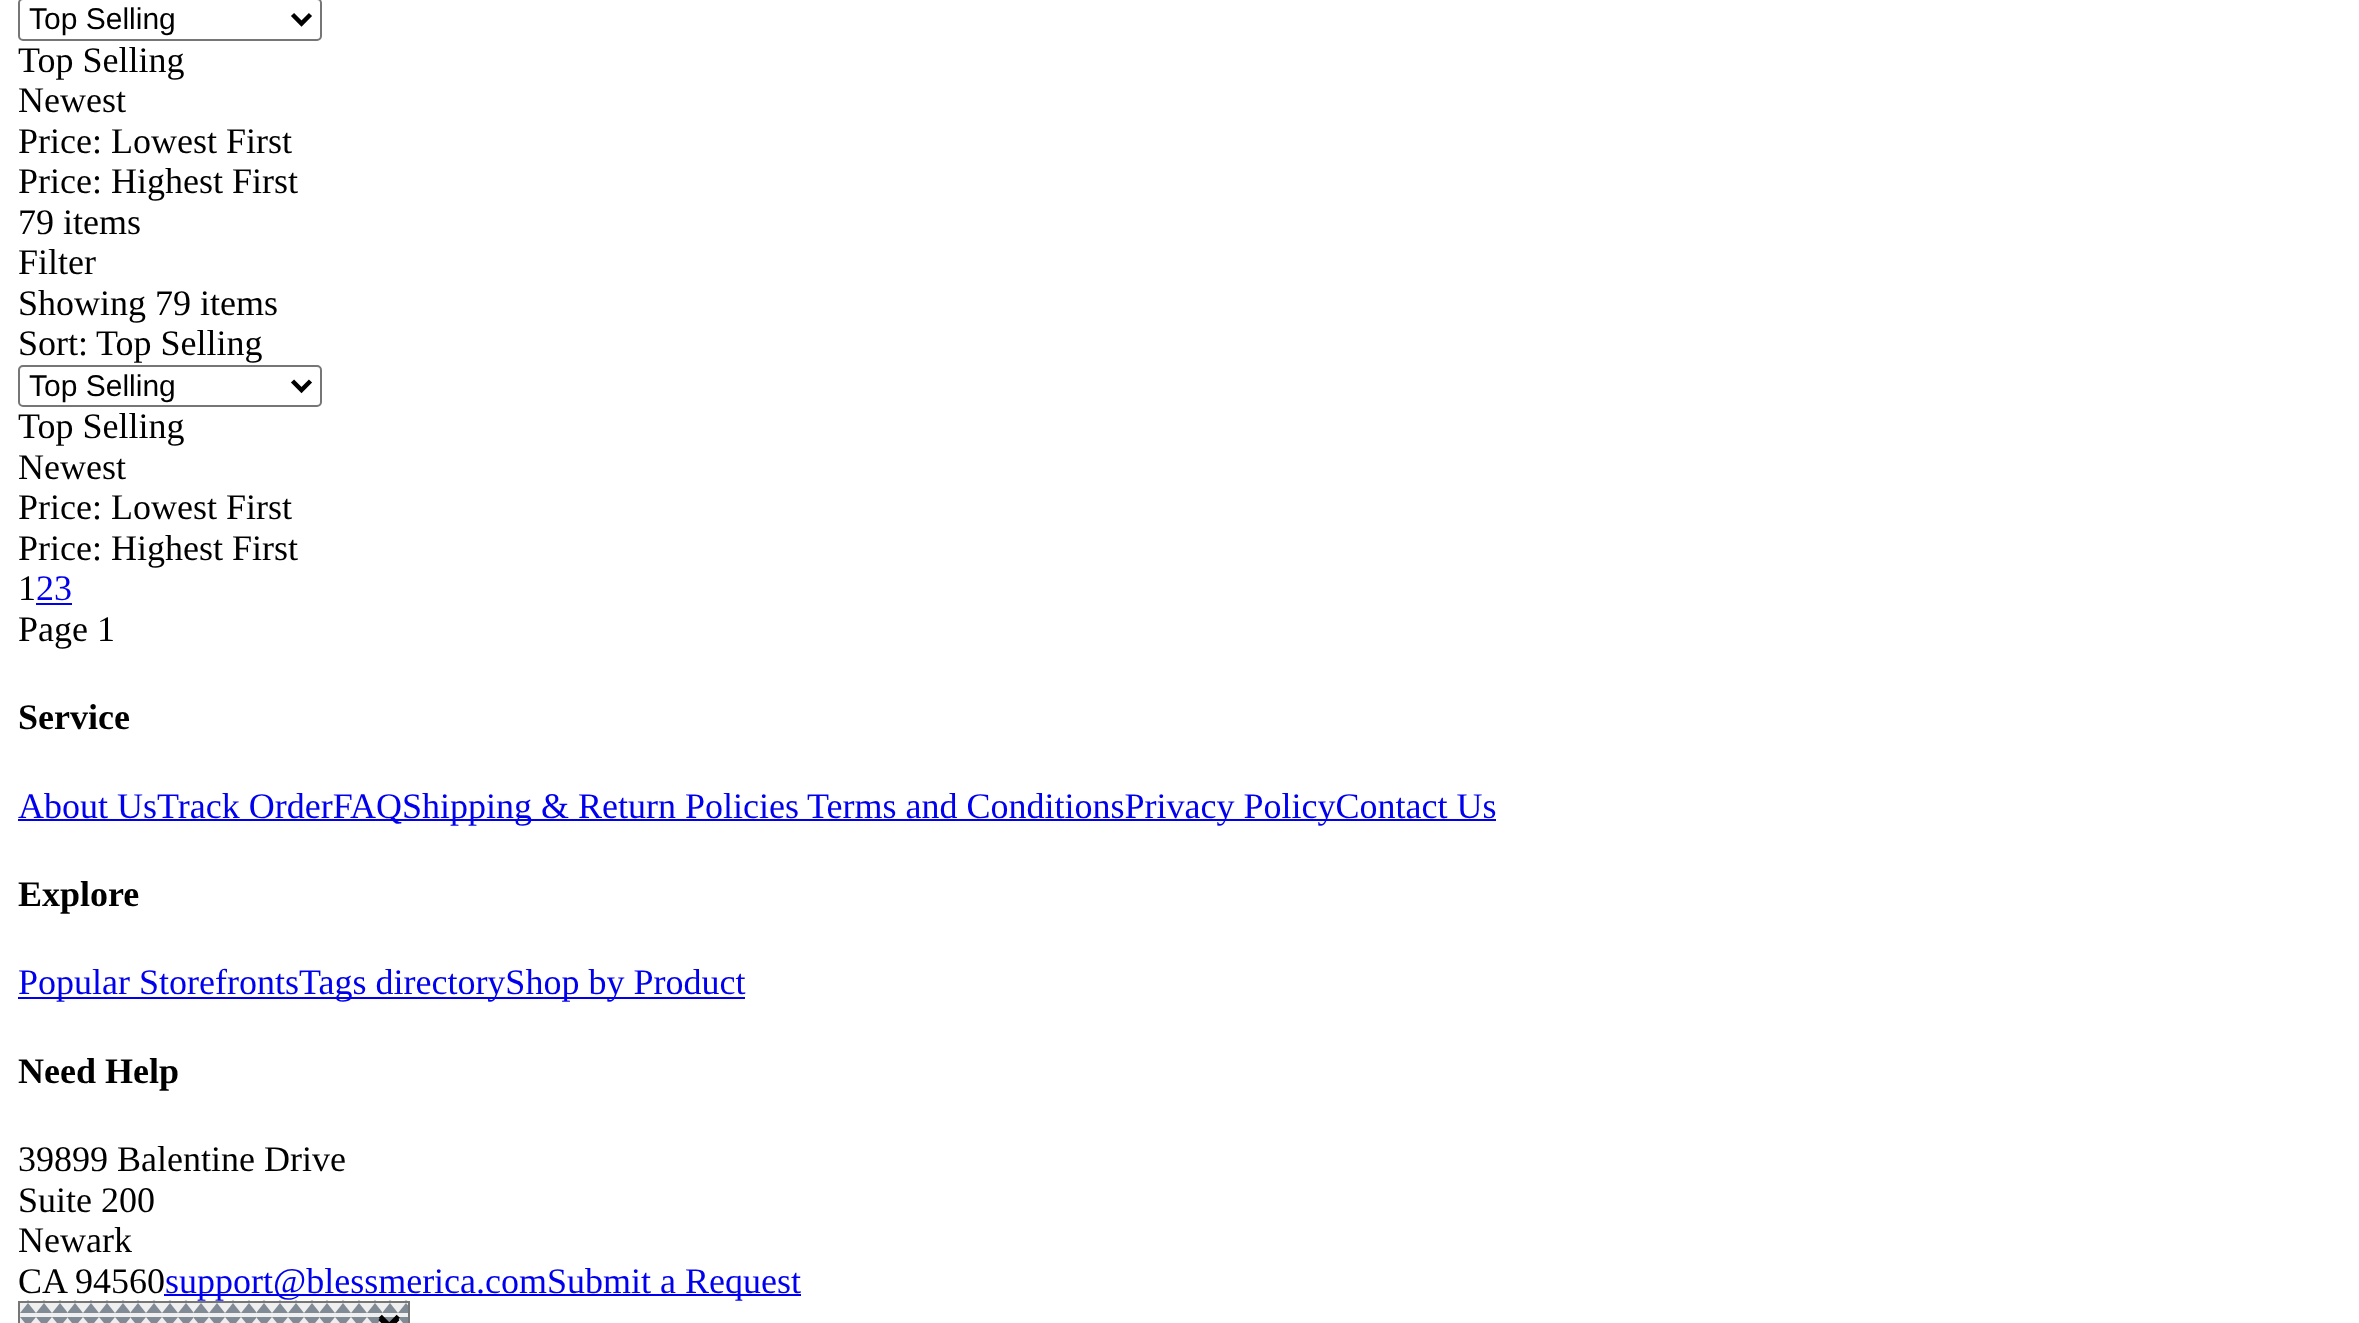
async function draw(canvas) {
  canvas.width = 2359
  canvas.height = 1323
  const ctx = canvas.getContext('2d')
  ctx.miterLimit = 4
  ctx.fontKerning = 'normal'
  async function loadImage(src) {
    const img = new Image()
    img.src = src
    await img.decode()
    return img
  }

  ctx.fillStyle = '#fff'
  ctx.fillRect(0, 0, 2359, 1323)
  ctx.beginPath()
  ctx.roundRect(19, -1, 302, 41, 4)
  ctx.strokeStyle = '#767676'
  ctx.lineWidth = 2
  ctx.stroke()
  ctx.beginPath()
  ctx.moveTo(292.5, 14.5)
  ctx.lineTo(301.5, 23.5)
  ctx.lineTo(310.5, 14.5)
  ctx.strokeStyle = '#000'
  ctx.lineWidth = 4.5
  ctx.stroke()
  ctx.font = '30px Liberation Sans'
  ctx.fillStyle = '#000'
  ctx.fillText('Top Selling', 29, 29)
  ctx.font = '36px Liberation Serif'
  ctx.fillText('Top Selling', 18, 72)
  ctx.fillText('Newest', 18, 112)
  ctx.fillText('Price: Lowest First', 18, 153)
  ctx.fillText('Price: Highest First', 18, 193)
  ctx.fillText('79 items', 18, 234)
  ctx.fillText('Filter', 18, 274)
  ctx.fillText('Showing 79 items', 18, 315)
  ctx.fillText('Sort:', 18, 355)
  ctx.fillText('Top Selling', 96, 355)
  ctx.beginPath()
  ctx.roundRect(19, 366, 302, 40, 4)
  ctx.strokeStyle = '#767676'
  ctx.lineWidth = 2
  ctx.stroke()
  ctx.beginPath()
  ctx.moveTo(292.5, 381)
  ctx.lineTo(301.5, 390)
  ctx.lineTo(310.5, 381)
  ctx.strokeStyle = '#000'
  ctx.lineWidth = 4.5
  ctx.stroke()
  ctx.font = '30px Liberation Sans'
  ctx.fillText('Top Selling', 29, 396)
  ctx.font = '36px Liberation Serif'
  ctx.fillText('Top Selling', 18, 438)
  ctx.fillText('Newest', 18, 479)
  ctx.fillText('Price: Lowest First', 18, 519)
  ctx.fillText('Price: Highest First', 18, 560)
  ctx.fillText('1', 18, 600)
  ctx.fillStyle = '#00e'
  ctx.fillText('23', 36, 600)
  ctx.fillRect(36, 603, 36, 2)
  ctx.fillStyle = '#000'
  ctx.fillText('Page 1', 18, 641)
  ctx.font = 'bold 36px Liberation Serif'
  ctx.fillText('Service', 18, 729)
  ctx.fillStyle = '#00e'
  ctx.fillRect(18, 819, 1478, 2)
  ctx.font = '36px Liberation Serif'
  ctx.fillText('About UsTrack OrderFAQShipping & Return Policies', 18, 818)
  ctx.fillText('Terms and ConditionsPrivacy PolicyContact Us', 807, 818)
  ctx.font = 'bold 36px Liberation Serif'
  ctx.fillStyle = '#000'
  ctx.fillText('Explore', 18, 906)
  ctx.fillStyle = '#00e'
  ctx.fillRect(18, 997, 727, 2)
  ctx.font = '36px Liberation Serif'
  ctx.fillText('Popular StorefrontsTags directoryShop by Product', 18, 994)
  ctx.font = 'bold 36px Liberation Serif'
  ctx.fillStyle = '#000'
  ctx.fillText('Need Help', 18, 1083)
  ctx.font = '36px Liberation Serif'
  ctx.fillText('39899 Balentine Drive', 18, 1171)
  ctx.fillText('Suite 200', 18, 1212)
  ctx.fillText('Newark', 18, 1252)
  ctx.fillText('CA 94560', 18, 1293)
  ctx.fillStyle = '#00e'
  ctx.fillRect(164, 1294, 637, 2)
  ctx.fillText('support@blessmerica.comSubmit a Request', 165, 1293)
  ctx.fillStyle = '#efefef'
  ctx.fillRect(20, 1303, 388, 20)
  ctx.drawImage(await loadImage('image0.png'), 20, 1300, 388, 23)
  ctx.strokeStyle = '#767676'
  ctx.lineWidth = 2
  ctx.strokeRect(19, 1302, 390, 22)
  ctx.beginPath()
  ctx.moveTo(380, 1318.5)
  ctx.lineTo(389, 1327.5)
  ctx.lineTo(398, 1318.5)
  ctx.strokeStyle = '#000'
  ctx.lineWidth = 4.5
  ctx.stroke()
}

draw(document.querySelector('canvas'))
